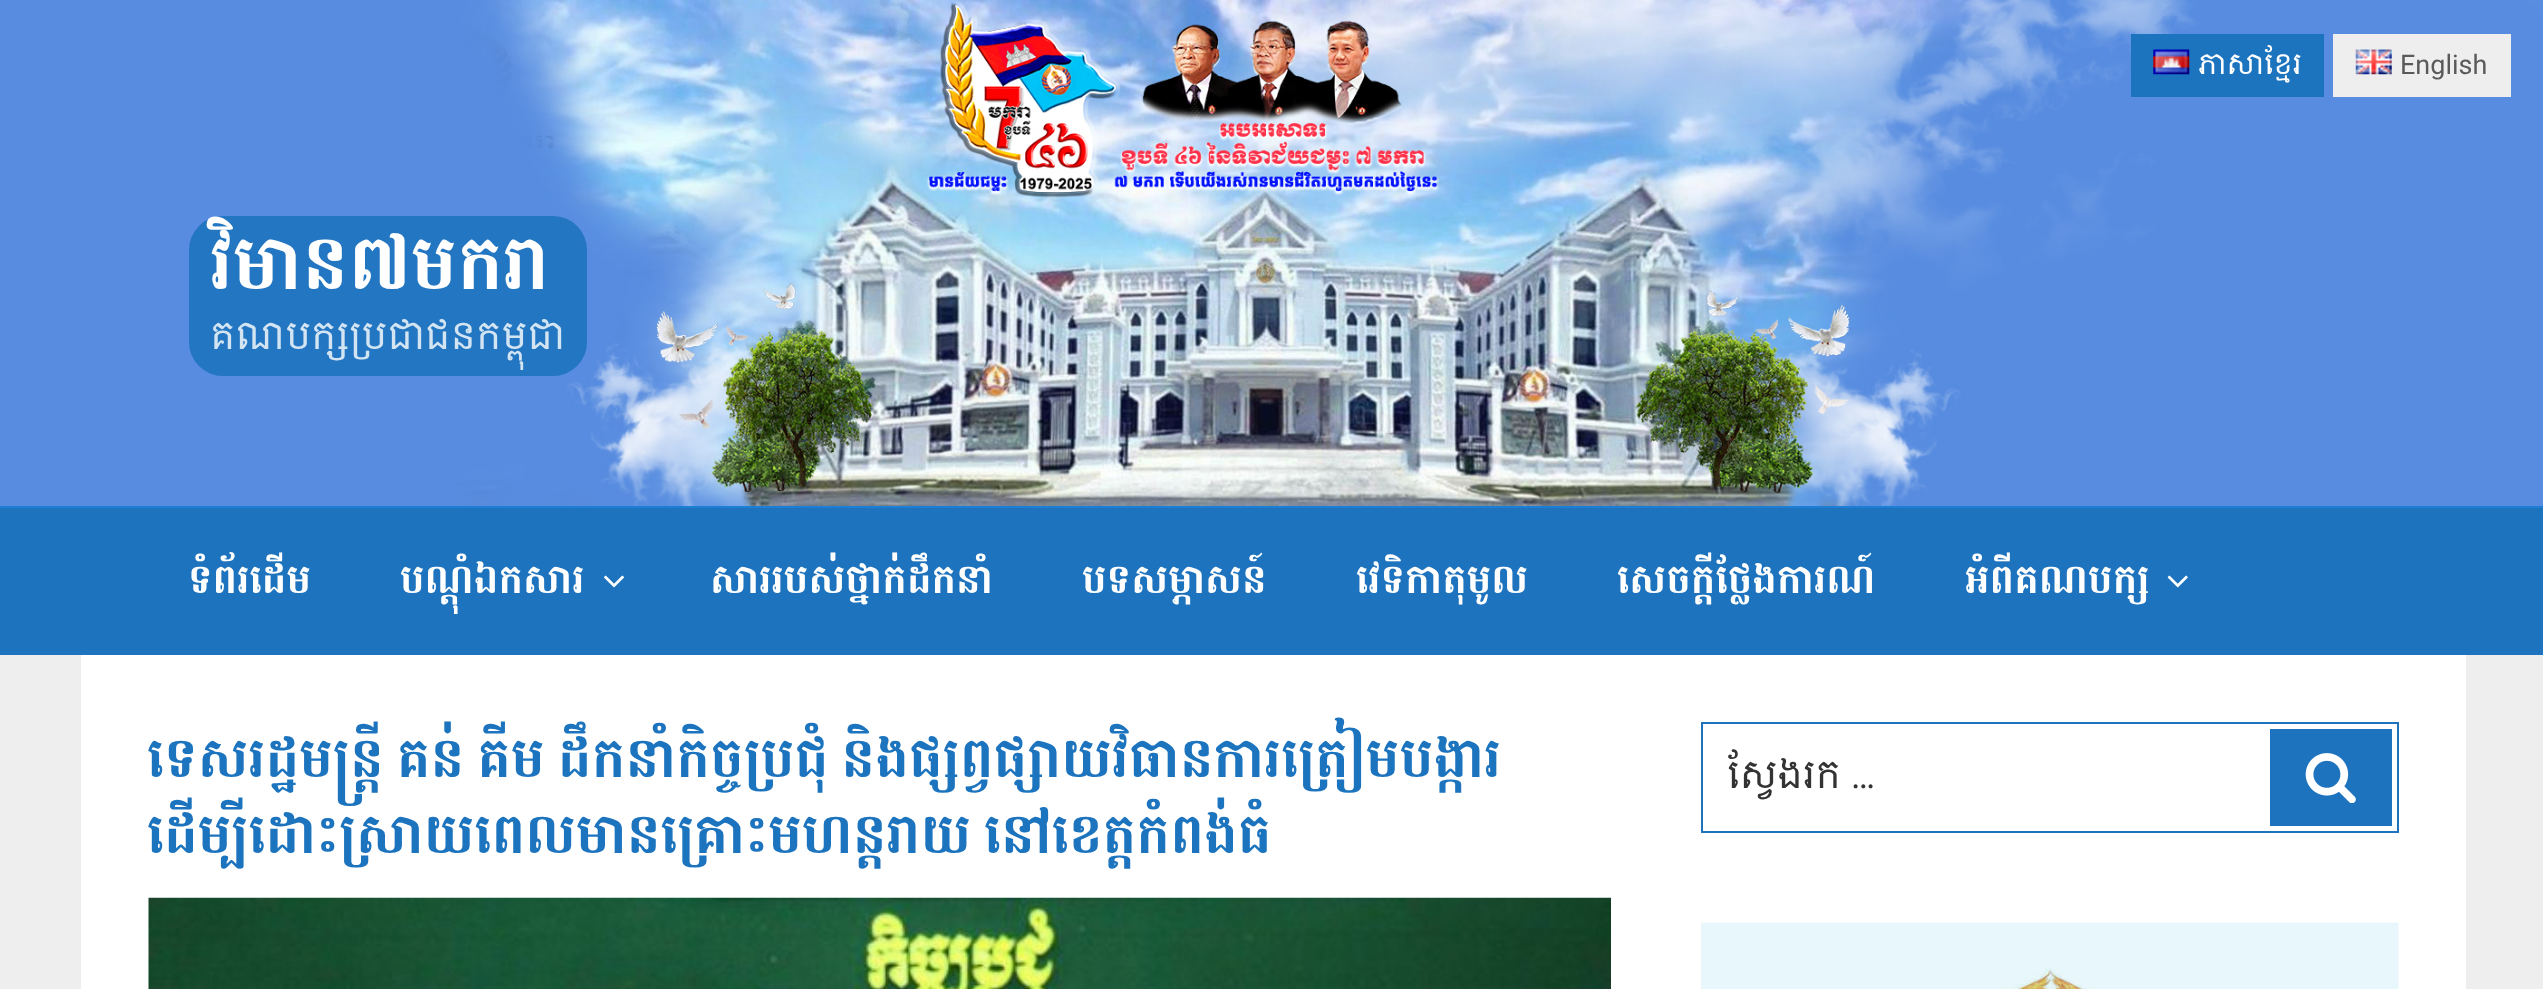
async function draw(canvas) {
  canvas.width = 2543
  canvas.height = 989
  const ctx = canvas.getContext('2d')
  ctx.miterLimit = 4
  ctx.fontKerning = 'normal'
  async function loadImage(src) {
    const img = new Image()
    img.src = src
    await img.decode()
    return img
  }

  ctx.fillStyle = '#fff'
  ctx.fillRect(0, 0, 2543, 989)
  ctx.drawImage(await loadImage('image2.png'), 0, 0, 2543, 506)
  ctx.fillStyle = '#1c73be'
  ctx.fillRect(2131, 34, 193, 63)
  ctx.drawImage(await loadImage('image0.png'), 2153, 49, 37, 26)
  ctx.font = '27px Battambang'
  ctx.fillStyle = '#fff'
  ctx.fillText('ភាសាខ្មែរ', 2198, 74)
  ctx.fillStyle = '#eee'
  ctx.fillRect(2333, 34, 178, 63)
  ctx.drawImage(await loadImage('image1.png'), 2355, 49, 37, 26)
  ctx.font = '27px Roboto'
  ctx.fillStyle = '#5a5a5a'
  ctx.fillText('English', 2400, 74)
  ctx.fillStyle = '#1e73bee6'
  ctx.beginPath()
  ctx.roundRect(189, 216, 398, 160, 34)
  ctx.fill()
  ctx.font = 'bold 67.5px Battambang'
  ctx.fillStyle = '#fff'
  ctx.fillText('វិមាន៧មករា', 210, 289)
  ctx.font = '36px Battambang'
  ctx.fillStyle = '#d3e4f3'
  ctx.fillText('គណបក្សប្រជាជនកម្ពុជា', 210, 349)
  ctx.fillStyle = '#1e73be'
  ctx.fillRect(0, 508, 2543, 147)
  ctx.fillStyle = '#1c7ed4'
  ctx.fillRect(0, 506, 2543, 2)
  ctx.font = 'bold 36px Battambang'
  ctx.fillStyle = '#fff'
  ctx.fillText('ទំព័រដើម', 188, 593)
  ctx.fillText('បណ្តុំឯកសារ', 400, 593)
  ctx.drawImage(await loadImage('image3.png'), 604, 575, 20, 13)
  ctx.fillText('សាររបស់ថ្នាក់ដឹកនាំ', 710, 593)
  ctx.fillText('បទសម្ភាសន៍', 1082, 593)
  ctx.fillText('វេទិកាតុមូល', 1356, 593)
  ctx.fillText('សេចក្ដីថ្លែងការណ៍', 1617, 593)
  ctx.fillText('អំពីគណបក្ស', 1965, 593)
  ctx.drawImage(await loadImage('image4.png'), 2167, 575, 21, 13)
  ctx.fillStyle = '#eee'
  ctx.fillRect(0, 655, 2543, 334)
  ctx.fillStyle = '#fff'
  ctx.fillRect(81, 655, 2385, 334)
  ctx.font = 'bold 49.5px Battambang'
  ctx.fillStyle = '#1c73be'
  ctx.fillText('ទេសរដ្ឋមន្ដ្រី គន់ គីម ដឹកនាំកិច្ចប្រជុំ និងផ្សព្វផ្សាយវិធានការត្រៀមបង្ការ', 147, 777)
  ctx.fillText('ដើម្បីដោះស្រាយពេលមានគ្រោះមហន្ដរាយ នៅខេត្តកំពង់ធំ', 147, 853)
  ctx.drawImage(await loadImage('image5.png'), 148, 897, 1463, 92)
  ctx.strokeStyle = '#1e73be'
  ctx.lineWidth = 2
  ctx.strokeRect(1702, 723, 696, 109)
  ctx.save()
  ctx.beginPath()
  ctx.rect(1728, 743, 632, 65)
  ctx.clip()
  ctx.font = '36px Battambang'
  ctx.fillStyle = '#333'
  ctx.fillText('ស្វែងរក', 1727, 788)
  ctx.restore()
  ctx.font = '36px Roboto'
  ctx.fillStyle = '#333'
  ctx.fillText('…', 1851, 788)
  ctx.fillStyle = '#1e73be'
  ctx.fillRect(2270, 729, 122, 97)
  ctx.drawImage(await loadImage('image6.png'), 2305, 753, 51, 50)
  ctx.drawImage(await loadImage('image7.png'), 1701, 922, 698, 67)
}

draw(document.querySelector('canvas'))
